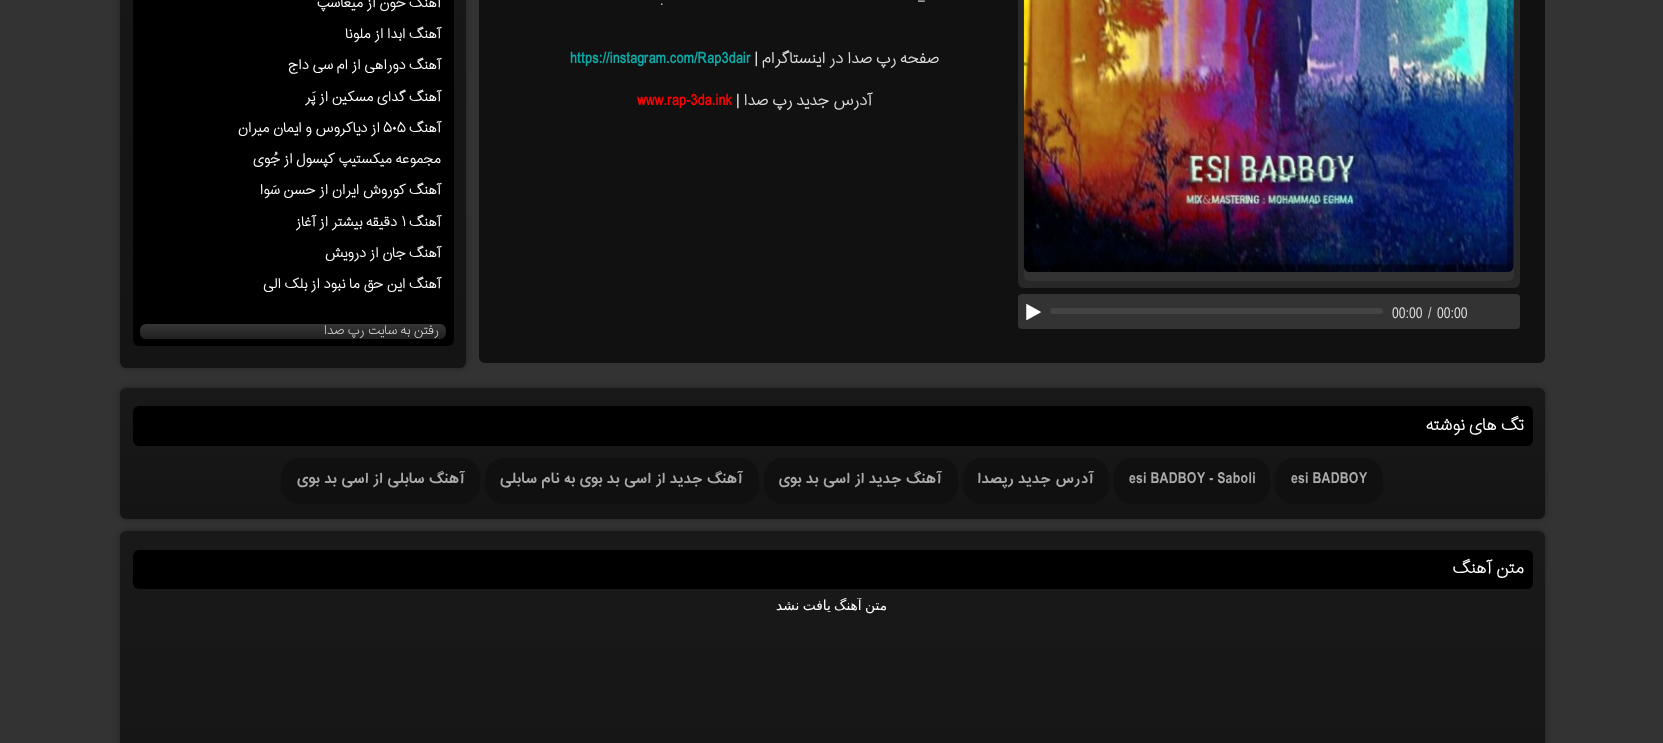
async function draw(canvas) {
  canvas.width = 1663
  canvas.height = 743
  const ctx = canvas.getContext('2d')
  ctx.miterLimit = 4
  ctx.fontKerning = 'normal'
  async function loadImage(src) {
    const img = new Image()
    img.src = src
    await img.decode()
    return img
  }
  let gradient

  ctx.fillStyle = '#333'
  ctx.fillRect(0, 0, 1663, 743)
  ctx.fillStyle = '#111'
  ctx.beginPath()
  ctx.roundRect(479, -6, 1066, 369, 6)
  ctx.fill()
  ctx.font = '200 15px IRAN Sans'
  ctx.fillStyle = '#ddd'
  ctx.fillText('–', 918, 5)
  ctx.fillText('.', 660, 5)
  ctx.direction = 'rtl'
  ctx.font = 'bold 15px IRAN Sans'
  ctx.fillText('صفحه رپ صدا در اینستاگرام |', 939, 63)
  ctx.direction = 'ltr'
  ctx.fillStyle = '#0daaa7'
  ctx.fillText('https://instagram.com/Rap3dair', 570, 63)
  ctx.direction = 'rtl'
  ctx.fillStyle = '#ddd'
  ctx.fillText('آدرس جدید رپ صدا |', 872, 105)
  ctx.direction = 'ltr'
  ctx.fillStyle = '#f00'
  ctx.fillText('www.rap-3da.ink', 637, 105)
  ctx.fillStyle = '#282828'
  ctx.beginPath()
  ctx.roundRect(1018, -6, 502, 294, 6)
  ctx.fill()
  ctx.fillStyle = '#333'
  ctx.beginPath()
  ctx.roundRect(1024, -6, 490, 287, 6)
  ctx.fill()
  ctx.drawImage(await loadImage('image0.png'), 1023, 0, 491, 272)
  ctx.beginPath()
  ctx.roundRect(1018, 294, 502, 35, 4)
  ctx.fill()
  ctx.font = '200 15px IRAN Sans'
  ctx.fillStyle = '#ddd'
  ctx.fillText('00:00', 1437, 318)
  ctx.fillText('/', 1428, 318)
  ctx.fillText('00:00', 1392, 318)
  ctx.fillStyle = '#444'
  ctx.beginPath()
  ctx.roundRect(1050, 308, 333, 6, 3)
  ctx.fill()
  ctx.drawImage(await loadImage('image1.png'), 1026, 304, 15, 17)
  ctx.fillStyle = '#00000059'
  ctx.filter = 'blur(3px)'
  ctx.beginPath()
  ctx.roundRect(120, -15, 346, 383, 6)
  ctx.fill()
  ctx.filter = 'none'
  gradient = ctx.createLinearGradient(293, -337, 293, 368)
  gradient.addColorStop(0, '#191919')
  gradient.addColorStop(1, '#141414')
  ctx.fillStyle = gradient
  ctx.beginPath()
  ctx.roundRect(120, -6, 346, 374, 6)
  ctx.fill()
  ctx.fillStyle = '#000'
  ctx.beginPath()
  ctx.roundRect(133, -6, 321, 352, 6)
  ctx.fill()
  ctx.direction = 'rtl'
  ctx.font = 'bold 13.3px IRAN Sans'
  ctx.fillStyle = '#fff'
  ctx.fillText('آهنگ خون از میعاسپ', 441, 7)
  ctx.fillText('آهنگ ابدا از ملونا', 441, 38)
  ctx.fillText('آهنگ دوراهی از ام سی داج', 441, 69)
  ctx.fillText('آهنگ گدای مسکین از پَر', 441, 101)
  ctx.fillText('آهنگ', 441, 132)
  ctx.direction = 'ltr'
  ctx.fillText('۵٠۵', 383, 132)
  ctx.direction = 'rtl'
  ctx.fillText('از دیاکروس و ایمان میران', 380, 132)
  ctx.fillText('مجموعه میکستیپ کپسول از جُوی', 441, 163)
  ctx.fillText('آهنگ کوروش ایران از حسن سَوا', 441, 194)
  ctx.fillText('آهنگ', 441, 226)
  ctx.direction = 'ltr'
  ctx.fillText('۱', 401, 226)
  ctx.direction = 'rtl'
  ctx.fillText('دقیقه بیشتر از آغاز', 397, 226)
  ctx.fillText('آهنگ جان از درویش', 441, 257)
  ctx.fillText('آهنگ این حق ما نبود از بلک الی', 441, 288)
  gradient = ctx.createLinearGradient(293, 324, 293, 339)
  gradient.addColorStop(0, '#353535')
  gradient.addColorStop(1, '#202020')
  ctx.fillStyle = gradient
  ctx.beginPath()
  ctx.roundRect(140, 324, 306, 15, 6)
  ctx.fill()
  ctx.font = '200 12.5px IRAN Sans'
  ctx.fillStyle = '#eee'
  ctx.fillText('رفتن به سایت رپ صدا', 439, 334)
  ctx.fillStyle = '#00000059'
  ctx.filter = 'blur(3px)'
  ctx.beginPath()
  ctx.roundRect(120, 388, 1425, 131, 6)
  ctx.fill()
  ctx.filter = 'none'
  gradient = ctx.createLinearGradient(833, 387, 833, 519)
  gradient.addColorStop(0, '#191919')
  gradient.addColorStop(1, '#141414')
  ctx.fillStyle = gradient
  ctx.beginPath()
  ctx.roundRect(120, 388, 1425, 131, 6)
  ctx.fill()
  ctx.fillStyle = '#000'
  ctx.beginPath()
  ctx.roundRect(133, 406, 1400, 40, 6)
  ctx.fill()
  ctx.font = 'bold 16.25px IRAN Sans'
  ctx.fillStyle = '#fff'
  ctx.fillText('تگ های نوشته', 1524, 430)
  ctx.fillStyle = '#101010'
  ctx.beginPath()
  ctx.roundRect(1275, 458, 108, 46, 19)
  ctx.fill()
  ctx.direction = 'ltr'
  ctx.font = 'bold 15px "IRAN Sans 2"'
  ctx.fillStyle = '#aaa'
  ctx.fillText('esi BADBOY', 1291, 483)
  ctx.fillStyle = '#101010'
  ctx.beginPath()
  ctx.roundRect(1114, 458, 156, 46, 19)
  ctx.fill()
  ctx.fillStyle = '#aaa'
  ctx.fillText('esi BADBOY - Saboli', 1129, 483)
  ctx.fillStyle = '#101010'
  ctx.beginPath()
  ctx.roundRect(963, 458, 146, 46, 19)
  ctx.fill()
  ctx.direction = 'rtl'
  ctx.fillStyle = '#aaa'
  ctx.fillText('آدرس جدید رپصدا', 1094, 483)
  ctx.fillStyle = '#101010'
  ctx.beginPath()
  ctx.roundRect(764, 458, 194, 46, 19)
  ctx.fill()
  ctx.fillStyle = '#aaa'
  ctx.fillText('آهنگ جدید از اسی بد بوی', 942, 483)
  ctx.fillStyle = '#101010'
  ctx.beginPath()
  ctx.roundRect(485, 458, 274, 46, 19)
  ctx.fill()
  ctx.fillStyle = '#aaa'
  ctx.fillText('آهنگ جدید از اسی بد بوی به نام سابلی', 743, 483)
  ctx.fillStyle = '#101010'
  ctx.beginPath()
  ctx.roundRect(281, 458, 199, 46, 19)
  ctx.fill()
  ctx.fillStyle = '#aaa'
  ctx.fillText('آهنگ سابلی از اسی بد بوی', 465, 483)
  ctx.fillStyle = '#00000059'
  ctx.filter = 'blur(3px)'
  ctx.beginPath()
  ctx.roundRect(120, 531, 1425, 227, 6)
  ctx.fill()
  ctx.filter = 'none'
  gradient = ctx.createLinearGradient(833, 531, 833, 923)
  gradient.addColorStop(0, '#191919')
  gradient.addColorStop(1, '#141414')
  ctx.fillStyle = gradient
  ctx.beginPath()
  ctx.roundRect(120, 531, 1425, 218, 6)
  ctx.fill()
  ctx.fillStyle = '#000'
  ctx.beginPath()
  ctx.roundRect(133, 550, 1400, 39, 6)
  ctx.fill()
  ctx.font = 'bold 16.25px IRAN Sans'
  ctx.fillStyle = '#fff'
  ctx.fillText('متن آهنگ', 1524, 573)
  ctx.save()
  ctx.beginPath()
  ctx.rect(133, 598, 1400, 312)
  ctx.clip()
  ctx.wordSpacing = '-1px'
  ctx.font = '13.75px DejaVu Sans'
  ctx.fillText('متن آهنگ یافت نشد', 887, 610)
  ctx.restore()
}

draw(document.querySelector('canvas'))
